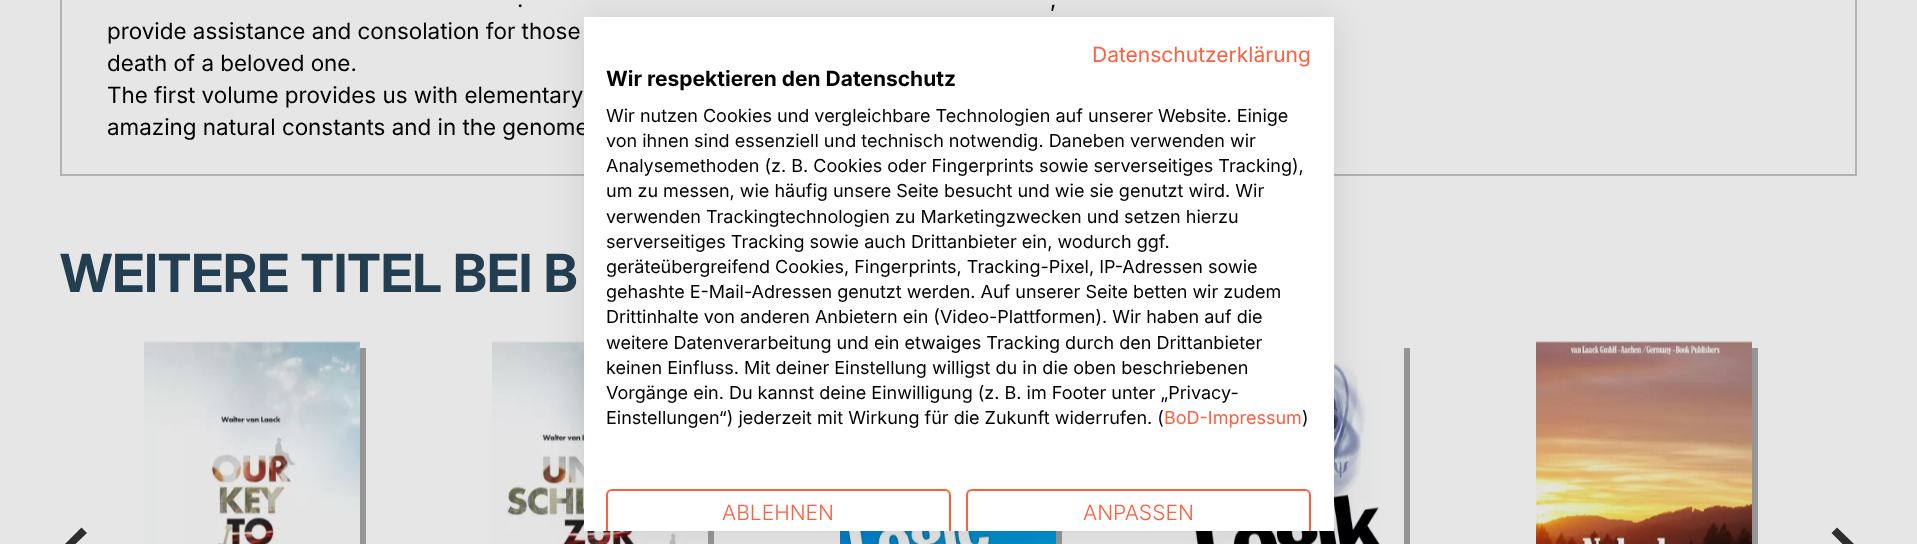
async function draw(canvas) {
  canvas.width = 1917
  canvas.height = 544
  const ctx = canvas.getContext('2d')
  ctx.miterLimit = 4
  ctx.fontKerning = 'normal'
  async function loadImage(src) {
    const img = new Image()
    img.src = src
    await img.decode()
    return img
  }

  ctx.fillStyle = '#e6e6e6'
  ctx.fillRect(0, 0, 1917, 544)
  ctx.strokeStyle = '#b2b2b2'
  ctx.lineWidth = 2
  ctx.strokeRect(61, -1, 1795, 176)
  ctx.font = '22.5px Inter'
  ctx.fillStyle = '#000'
  ctx.fillText('.', 517, 7)
  ctx.fillText(',', 1050, 7)
  ctx.fillText('provide assistance and consolation for those', 107, 39)
  ctx.fillText('death of a beloved one.', 107, 71)
  ctx.fillText('The first volume provides us with elementary', 107, 103)
  ctx.fillText('amazing natural constants and in the genome', 107, 135)
  ctx.font = 'bold 52.5px Inter'
  ctx.fillStyle = '#233e51'
  ctx.fillText('WEITERE TITEL BEI B', 60, 292)
  ctx.fillStyle = '#2e2e2e'
  ctx.beginPath()
  ctx.moveTo(75, 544.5)
  ctx.lineTo(87, 533)
  ctx.lineTo(81.5, 527.5)
  ctx.lineTo(64.5, 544.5)
  ctx.lineTo(81, 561)
  ctx.lineTo(86.5, 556)
  ctx.closePath()
  ctx.fill()
  ctx.fillStyle = '#959595'
  ctx.beginPath()
  ctx.moveTo(150, 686)
  ctx.lineTo(150, 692)
  ctx.lineTo(366, 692)
  ctx.lineTo(366, 348)
  ctx.lineTo(360, 348)
  ctx.lineTo(360, 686)
  ctx.closePath()
  ctx.fill()
  ctx.drawImage(await loadImage('image0.png'), 144, 341, 216, 203)
  ctx.beginPath()
  ctx.moveTo(498, 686)
  ctx.lineTo(498, 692)
  ctx.lineTo(714, 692)
  ctx.lineTo(714, 348)
  ctx.lineTo(708, 348)
  ctx.lineTo(708, 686)
  ctx.closePath()
  ctx.fill()
  ctx.drawImage(await loadImage('image1.png'), 492, 341, 216, 203)
  ctx.beginPath()
  ctx.moveTo(846, 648)
  ctx.lineTo(846, 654)
  ctx.lineTo(1062, 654)
  ctx.lineTo(1062, 348)
  ctx.lineTo(1056, 348)
  ctx.lineTo(1056, 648)
  ctx.closePath()
  ctx.fill()
  ctx.drawImage(await loadImage('image2.png'), 840, 531, 216, 13)
  ctx.beginPath()
  ctx.moveTo(1194, 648)
  ctx.lineTo(1194, 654)
  ctx.lineTo(1410, 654)
  ctx.lineTo(1410, 348)
  ctx.lineTo(1404, 348)
  ctx.lineTo(1404, 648)
  ctx.closePath()
  ctx.fill()
  ctx.drawImage(await loadImage('image3.png'), 1191, 361, 189, 183)
  ctx.beginPath()
  ctx.moveTo(1542, 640)
  ctx.lineTo(1542, 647)
  ctx.lineTo(1758, 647)
  ctx.lineTo(1758, 348)
  ctx.lineTo(1752, 348)
  ctx.lineTo(1752, 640)
  ctx.closePath()
  ctx.fill()
  ctx.drawImage(await loadImage('image4.png'), 1536, 341, 216, 203)
  ctx.fillStyle = '#2e2e2e'
  ctx.beginPath()
  ctx.moveTo(1843, 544.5)
  ctx.lineTo(1831.5, 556)
  ctx.lineTo(1837, 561)
  ctx.lineTo(1854, 544)
  ctx.lineTo(1837, 527.5)
  ctx.lineTo(1831.5, 533)
  ctx.closePath()
  ctx.fill()
  ctx.fillStyle = '#0000001a'
  ctx.filter = 'blur(18px)'
  ctx.beginPath()
  ctx.rect(584, 17, 750, 514)
  ctx.fill()
  ctx.filter = 'none'
  ctx.fillStyle = '#fff'
  ctx.fillRect(584, 17, 750, 514)
  ctx.font = '21px "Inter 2"'
  ctx.fillStyle = '#fd6041'
  ctx.fillText('Datenschutzerklärung', 1092, 62)
  ctx.font = 'bold 21px "Inter 2"'
  ctx.fillStyle = '#000'
  ctx.fillText('Wir respektieren den Datenschutz', 606, 86)
  ctx.font = '18px "Inter 2"'
  ctx.fillText('Wir nutzen Cookies und vergleichbare Technologien auf unserer Website. Einige', 606, 122)
  ctx.fillText('von ihnen sind essenziell und technisch notwendig. Daneben verwenden wir', 606, 147)
  ctx.fillText('Analysemethoden (z. B. Cookies oder Fingerprints sowie serverseitiges Tracking),', 606, 172)
  ctx.fillText('um zu messen, wie häufig unsere Seite besucht und wie sie genutzt wird. Wir', 606, 197)
  ctx.fillText('verwenden Trackingtechnologien zu Marketingzwecken und setzen hierzu', 606, 223)
  ctx.fillText('serverseitiges Tracking sowie auch Drittanbieter ein, wodurch ggf.', 606, 248)
  ctx.fillText('geräteübergreifend Cookies, Fingerprints, Tracking-Pixel, IP-Adressen sowie', 606, 273)
  ctx.fillText('gehashte E-Mail-Adressen genutzt werden. Auf unserer Seite betten wir zudem', 606, 298)
  ctx.fillText('Drittinhalte von anderen Anbietern ein (Video-Plattformen). Wir haben auf die', 606, 323)
  ctx.fillText('weitere Datenverarbeitung und ein etwaiges Tracking durch den Drittanbieter', 606, 349)
  ctx.fillText('keinen Einfluss. Mit deiner Einstellung willigst du in die oben beschriebenen', 606, 374)
  ctx.fillText('Vorgänge ein. Du kannst deine Einwilligung (z. B. im Footer unter „Privacy-', 606, 399)
  ctx.fillText('Einstellungen“) jederzeit mit Wirkung für die Zukunft widerrufen. (', 606, 424)
  ctx.fillStyle = '#fd6041'
  ctx.fillText('BoD-Impressum', 1164, 424)
  ctx.fillStyle = '#000'
  ctx.fillText(')', 1302, 424)
  ctx.save()
  ctx.beginPath()
  ctx.rect(584, 17, 750, 514)
  ctx.clip()
  ctx.beginPath()
  ctx.roundRect(607, 490, 343, 45, 5)
  ctx.strokeStyle = '#fd6041'
  ctx.stroke()
  ctx.restore()
  ctx.font = '300 21px Inter'
  ctx.fillStyle = '#fd6041'
  ctx.fillText('ABLEHNEN', 722, 520)
  ctx.save()
  ctx.beginPath()
  ctx.rect(584, 17, 750, 514)
  ctx.clip()
  ctx.beginPath()
  ctx.roundRect(967, 490, 343, 45, 5)
  ctx.strokeStyle = '#fd6041'
  ctx.stroke()
  ctx.restore()
  ctx.fillText('ANPASSEN', 1083, 520)
}

draw(document.querySelector('canvas'))
